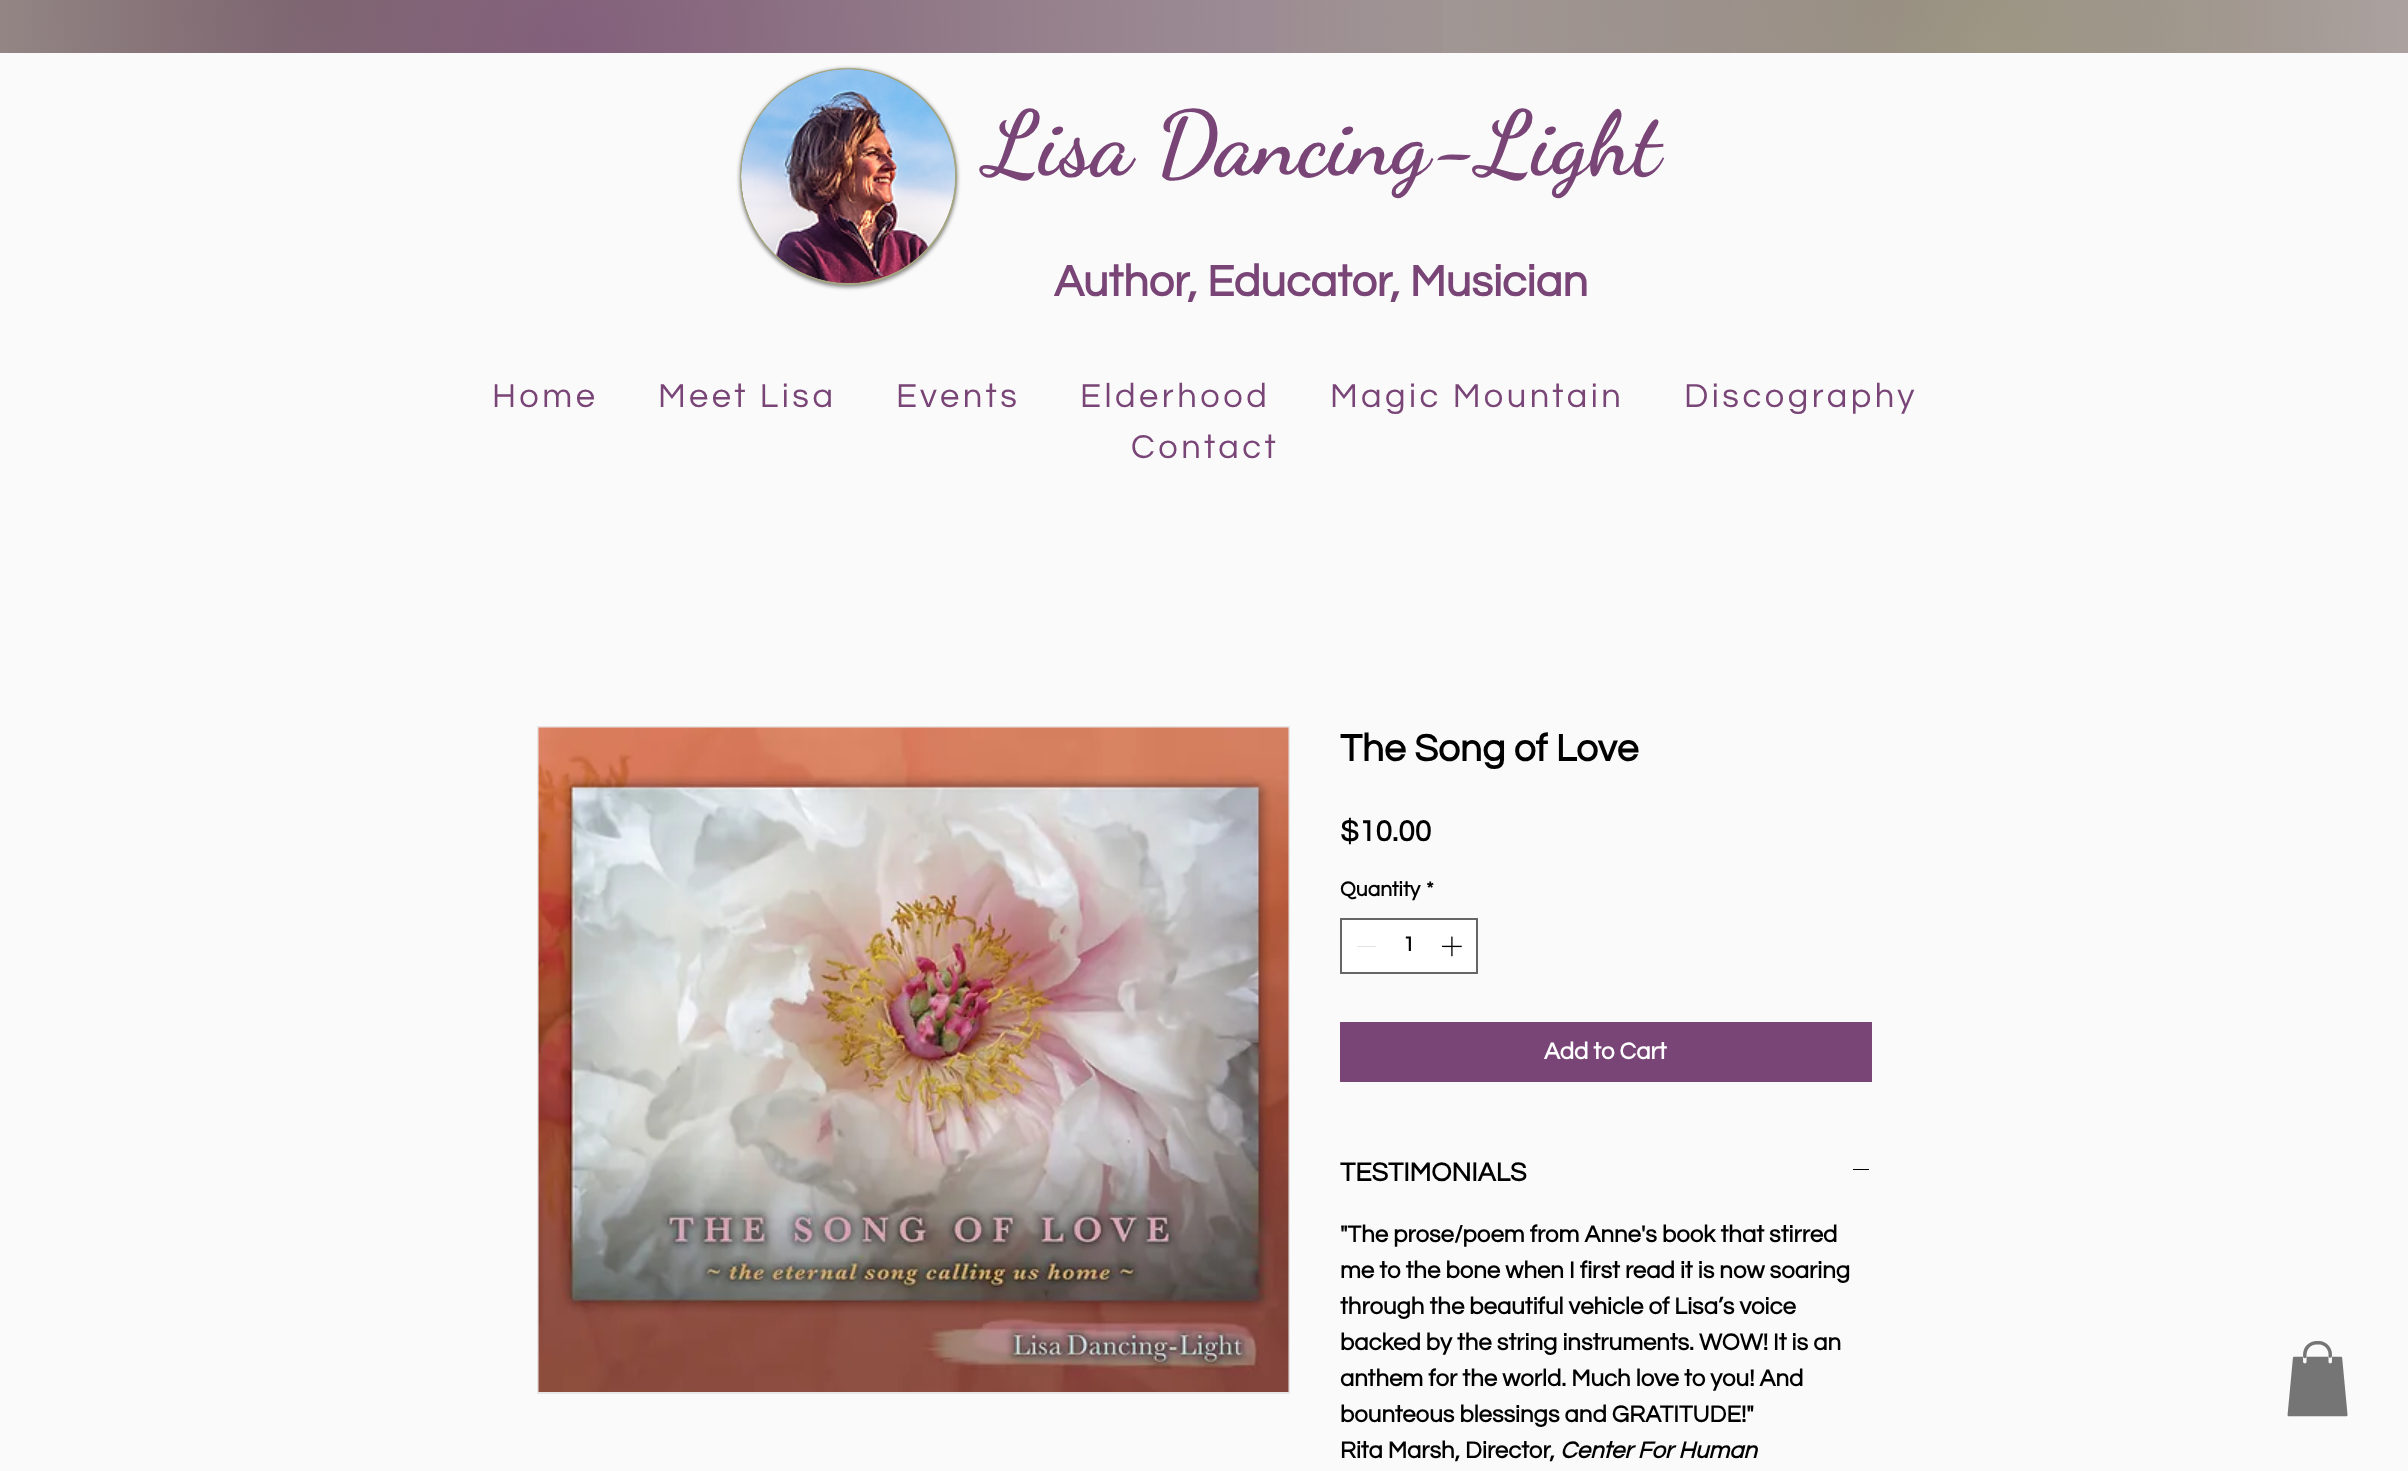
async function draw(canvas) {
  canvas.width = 2408
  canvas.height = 1471
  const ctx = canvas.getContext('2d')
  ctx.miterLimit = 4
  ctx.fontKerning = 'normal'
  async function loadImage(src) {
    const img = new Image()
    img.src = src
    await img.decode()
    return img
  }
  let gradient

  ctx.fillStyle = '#fafafa'
  ctx.fillRect(0, 0, 2408, 1471)
  gradient = ctx.createRadialGradient(1922, 16, 0, 1922, 16, 1922)
  gradient.addColorStop(0, '#846b82')
  gradient.addColorStop(0.7, '#fafafa')
  ctx.fillStyle = gradient
  ctx.fillRect(598, 0, 1810, 53)
  gradient = ctx.createRadialGradient(309, 4.1, 0, 309, 4.1, 2101)
  gradient.addColorStop(0, '#50512eb3')
  gradient.addColorStop(0.7, '#50512e00')
  ctx.fillStyle = gradient
  ctx.fillRect(0, 0, 1731, 53)
  gradient = ctx.createRadialGradient(575, 46, 0, 575, 46, 1835)
  gradient.addColorStop(0, '#794577b0')
  gradient.addColorStop(0.5, '#79457700')
  ctx.fillStyle = gradient
  ctx.fillRect(0, 0, 1442, 53)
  gradient = ctx.createRadialGradient(1984, 46, 0, 1984, 46, 1984)
  gradient.addColorStop(0, '#a5a682b3')
  gradient.addColorStop(0.4, '#a5a68200')
  ctx.fillStyle = gradient
  ctx.fillRect(1275, 0, 1133, 53)
  ctx.fillStyle = '#00000080'
  ctx.filter = 'blur(2px)'
  ctx.beginPath()
  ctx.roundRect(740, 69, 217, 218, 108.5)
  ctx.fill()
  ctx.filter = 'none'
  ctx.beginPath()
  ctx.arc(848.5, 176.5, 107.5, 0, 2 * Math.PI)
  ctx.strokeStyle = '#a5a682'
  ctx.lineWidth = 2
  ctx.stroke()
  ctx.save()
  ctx.beginPath()
  ctx.rect(741, 69, 215, 215)
  ctx.clip()
  ctx.fillStyle = '#a5a682'
  ctx.beginPath()
  ctx.moveTo(848, 284)
  ctx.bezierCurveTo(870, 284, 891, 277, 908, 265)
  ctx.bezierCurveTo(971, 222, 971, 132, 910, 89)
  ctx.bezierCurveTo(892, 76, 870, 69, 848, 69)
  ctx.bezierCurveTo(820, 70, 793, 80, 772, 100)
  ctx.bezierCurveTo(704, 169, 755, 284, 848, 284)
  ctx.closePath()
  ctx.fill()
  ctx.restore()
  ctx.drawImage(await loadImage('image0.png'), 741, 69, 214, 215)
  ctx.font = 'bold 90px Dancing Script'
  ctx.fillStyle = '#794577'
  ctx.fillText('Lisa Dancing-Light', 985, 173)
  ctx.font = 'bold 45px Questrial'
  ctx.fillText('Author, Educator, Musician', 1054, 296)
  ctx.letterSpacing = '3.5px'
  ctx.font = '34.5px Questrial'
  ctx.fillText('Home', 492, 407)
  ctx.fillText('Meet Lisa', 658, 407)
  ctx.fillText('Events', 896, 407)
  ctx.fillText('Elderhood', 1080, 407)
  ctx.fillText('Magic Mountain', 1330, 407)
  ctx.fillText('Discography', 1684, 407)
  ctx.fillText('Contact', 1131, 458)
  ctx.strokeStyle = '#e8e6e6'
  ctx.strokeRect(538, 727, 751, 666)
  ctx.drawImage(await loadImage('image1.png'), 538, 727, 751, 665)
  ctx.letterSpacing = '0px'
  ctx.font = 'bold 39px Questrial'
  ctx.fillStyle = '#000'
  ctx.fillText('The Song of Love', 1340, 761)
  ctx.font = 'bold 30px Questrial'
  ctx.fillText('$10.00', 1340, 841)
  ctx.font = 'bold 21px Questrial'
  ctx.fillText('Quantity', 1340, 896)
  ctx.fillText('*', 1426, 896)
  ctx.fillStyle = '#fff'
  ctx.beginPath()
  ctx.rect(1341, 919, 136, 54)
  ctx.fill()
  ctx.strokeStyle = '#666'
  ctx.stroke()
  ctx.fillStyle = '#e3e3e3'
  ctx.fillRect(1357, 946, 19, 1)
  ctx.fillStyle = '#000'
  ctx.fillText('1', 1403, 951)
  ctx.drawImage(await loadImage('image2.png'), 1442, 936, 20, 21)
  ctx.fillStyle = '#794577'
  ctx.fillRect(1340, 1022, 532, 60)
  ctx.font = 'bold 24px Questrial'
  ctx.fillStyle = '#fff'
  ctx.fillText('Add to Cart', 1544, 1059)
  ctx.font = 'bold 27px Questrial'
  ctx.fillStyle = '#000'
  ctx.fillText('TESTIMONIALS', 1340, 1181)
  ctx.fillRect(1853, 1169, 16, 1)
  ctx.font = 'bold 24px Questrial'
  ctx.fillText('"The prose/poem from Anne\'s book that stirred', 1340, 1242)
  ctx.fillText('me to the bone when I first read it is now soaring', 1340, 1278)
  ctx.fillText('through the beautiful vehicle of Lisa’s voice', 1340, 1314)
  ctx.fillText('backed by the string instruments. WOW! It is an', 1340, 1350)
  ctx.fillText('anthem for the world. Much love to you! And', 1340, 1386)
  ctx.fillText('bounteous blessings and GRATITUDE!"', 1340, 1422)
  ctx.fillText('Rita Marsh, Director,', 1340, 1458)
  ctx.font = 'italic bold 24px Questrial'
  ctx.fillText('Center For Human', 1560, 1458)
  ctx.drawImage(await loadImage('image3.png'), 2287, 1341, 61, 76)
}

draw(document.querySelector('canvas'))
